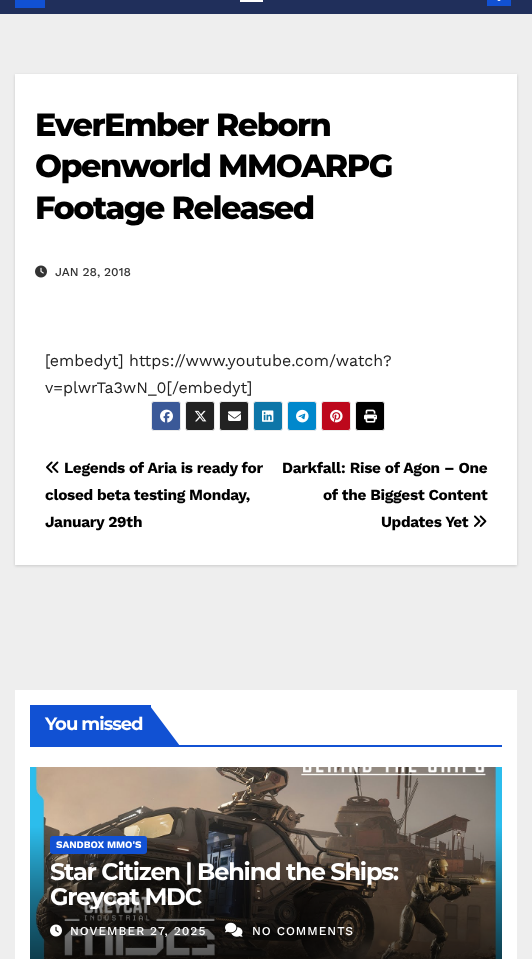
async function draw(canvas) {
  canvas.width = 532
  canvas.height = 959
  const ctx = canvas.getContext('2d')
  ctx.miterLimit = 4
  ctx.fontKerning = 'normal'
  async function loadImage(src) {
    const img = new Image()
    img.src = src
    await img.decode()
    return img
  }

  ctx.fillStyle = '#eee'
  ctx.fillRect(0, 0, 532, 959)
  ctx.fillStyle = '#202f5b'
  ctx.fillRect(0, 0, 532, 14)
  ctx.fillStyle = '#1151d3'
  ctx.fillRect(15, 0, 30, 8)
  ctx.fillStyle = '#fff'
  ctx.fillRect(240, 0, 23, 2)
  ctx.fillStyle = '#1151d3'
  ctx.fillRect(487, 0, 24, 6)
  ctx.drawImage(await loadImage('image0.png'), 497, 0, 4, 1)
  ctx.fillStyle = '#00000026'
  ctx.filter = 'blur(1.5px)'
  ctx.beginPath()
  ctx.rect(15, 75, 502, 491)
  ctx.fill()
  ctx.filter = 'none'
  ctx.fillStyle = '#fff'
  ctx.fillRect(15, 74, 502, 491)
  ctx.letterSpacing = '-1.6px'
  ctx.font = '800 32px Montserrat'
  ctx.fillStyle = '#000'
  ctx.fillText('EverEmber Reborn', 35, 136)
  ctx.fillText('Openworld MMOARPG', 35, 177)
  ctx.fillText('Footage Released', 35, 219)
  ctx.drawImage(await loadImage('image1.png'), 35, 265, 12, 13)
  ctx.letterSpacing = '0px'
  ctx.font = '500 12px Work Sans'
  ctx.fillStyle = '#333'
  ctx.fillText('JAN 28, 2018', 55, 276)
  ctx.font = '16px Work Sans'
  ctx.fillStyle = '#222'
  ctx.fillText('[embedyt] https://www.youtube.com/watch?', 45, 366)
  ctx.fillText('v=plwrTa3wN_0[/embedyt]', 45, 393)
  ctx.fillStyle = '#3b5998'
  ctx.beginPath()
  ctx.roundRect(151.5, 401.5, 29, 29, 2.5)
  ctx.fill()
  ctx.strokeStyle = '#ebebeb'
  ctx.stroke()
  ctx.drawImage(await loadImage('image2.png'), 160, 409, 13, 14)
  ctx.fillStyle = '#222'
  ctx.beginPath()
  ctx.roundRect(185.5, 401.5, 29, 29, 2.5)
  ctx.fill()
  ctx.stroke()
  ctx.drawImage(await loadImage('image3.png'), 194, 410, 13, 12)
  ctx.beginPath()
  ctx.roundRect(219.5, 401.5, 29, 29, 2.5)
  ctx.fill()
  ctx.stroke()
  ctx.drawImage(await loadImage('image4.png'), 228, 411, 13, 10)
  ctx.fillStyle = '#0e76a8'
  ctx.beginPath()
  ctx.roundRect(253.5, 401.5, 29, 29, 2.5)
  ctx.fill()
  ctx.stroke()
  ctx.drawImage(await loadImage('image5.png'), 262, 410, 12, 12)
  ctx.fillStyle = '#08c'
  ctx.beginPath()
  ctx.roundRect(287.5, 401.5, 29, 29, 2.5)
  ctx.fill()
  ctx.stroke()
  ctx.drawImage(await loadImage('image6.png'), 296, 409, 13, 14)
  ctx.fillStyle = '#bd081c'
  ctx.beginPath()
  ctx.roundRect(321.5, 401.5, 29, 29, 2.5)
  ctx.fill()
  ctx.stroke()
  ctx.drawImage(await loadImage('image7.png'), 330, 409, 13, 14)
  ctx.fillStyle = '#000'
  ctx.beginPath()
  ctx.roundRect(355.5, 401.5, 29, 29, 2.5)
  ctx.fill()
  ctx.stroke()
  ctx.drawImage(await loadImage('image8.png'), 364, 409, 13, 14)
  ctx.drawImage(await loadImage('image9.png'), 46, 461, 13, 12)
  ctx.letterSpacing = '-0.3px'
  ctx.font = 'bold 15.4px Work Sans'
  ctx.fillText('Legends of Aria is ready for', 64, 473)
  ctx.fillText('closed beta testing Monday,', 45, 500)
  ctx.fillText('January 29th', 45, 527)
  ctx.fillText('Darkfall: Rise of Agon – One', 282, 473)
  ctx.fillText('of the Biggest Content', 323, 500)
  ctx.fillText('Updates Yet', 381, 527)
  ctx.drawImage(await loadImage('image10.png'), 474, 515, 13, 12)
  ctx.fillStyle = '#fff'
  ctx.fillRect(15, 690, 502, 269)
  ctx.fillStyle = '#1151d3'
  ctx.fillRect(30, 745, 472, 2)
  ctx.fillRect(30, 705, 121, 40)
  ctx.letterSpacing = '-1px'
  ctx.font = 'bold 18px Montserrat'
  ctx.fillStyle = '#fff'
  ctx.fillText('You missed', 45, 730)
  ctx.fillStyle = '#1151d3'
  ctx.beginPath()
  ctx.moveTo(180, 746)
  ctx.lineTo(150, 746)
  ctx.lineTo(150, 706)
  ctx.closePath()
  ctx.fill()
  ctx.drawImage(await loadImage('image11.png'), 30, 767, 472, 192)
  ctx.beginPath()
  ctx.roundRect(50, 836, 97, 18, 3)
  ctx.fill()
  ctx.letterSpacing = '0px'
  ctx.font = 'bold 10px Work Sans'
  ctx.fillStyle = '#fff'
  ctx.fillText('SANDBOX MMO\'S', 56, 848)
  ctx.letterSpacing = '-1.2px'
  ctx.font = 'bold 24px Montserrat'
  ctx.fillText('Star Citizen | Behind the Ships:', 50, 880)
  ctx.save()
  ctx.beginPath()
  ctx.rect(50, 859, 432, 50)
  ctx.clip()
  ctx.fillText('Greycat MDC', 50, 905)
  ctx.restore()
  ctx.drawImage(await loadImage('image12.png'), 50, 924, 12, 13)
  ctx.letterSpacing = '1px'
  ctx.font = '500 12px Work Sans'
  ctx.fillText('NOVEMBER 27, 2025', 70, 935)
  ctx.drawImage(await loadImage('image13.png'), 225, 922, 18, 15)
  ctx.fillText('NO COMMENTS', 252, 935)
}

draw(document.querySelector('canvas'))
